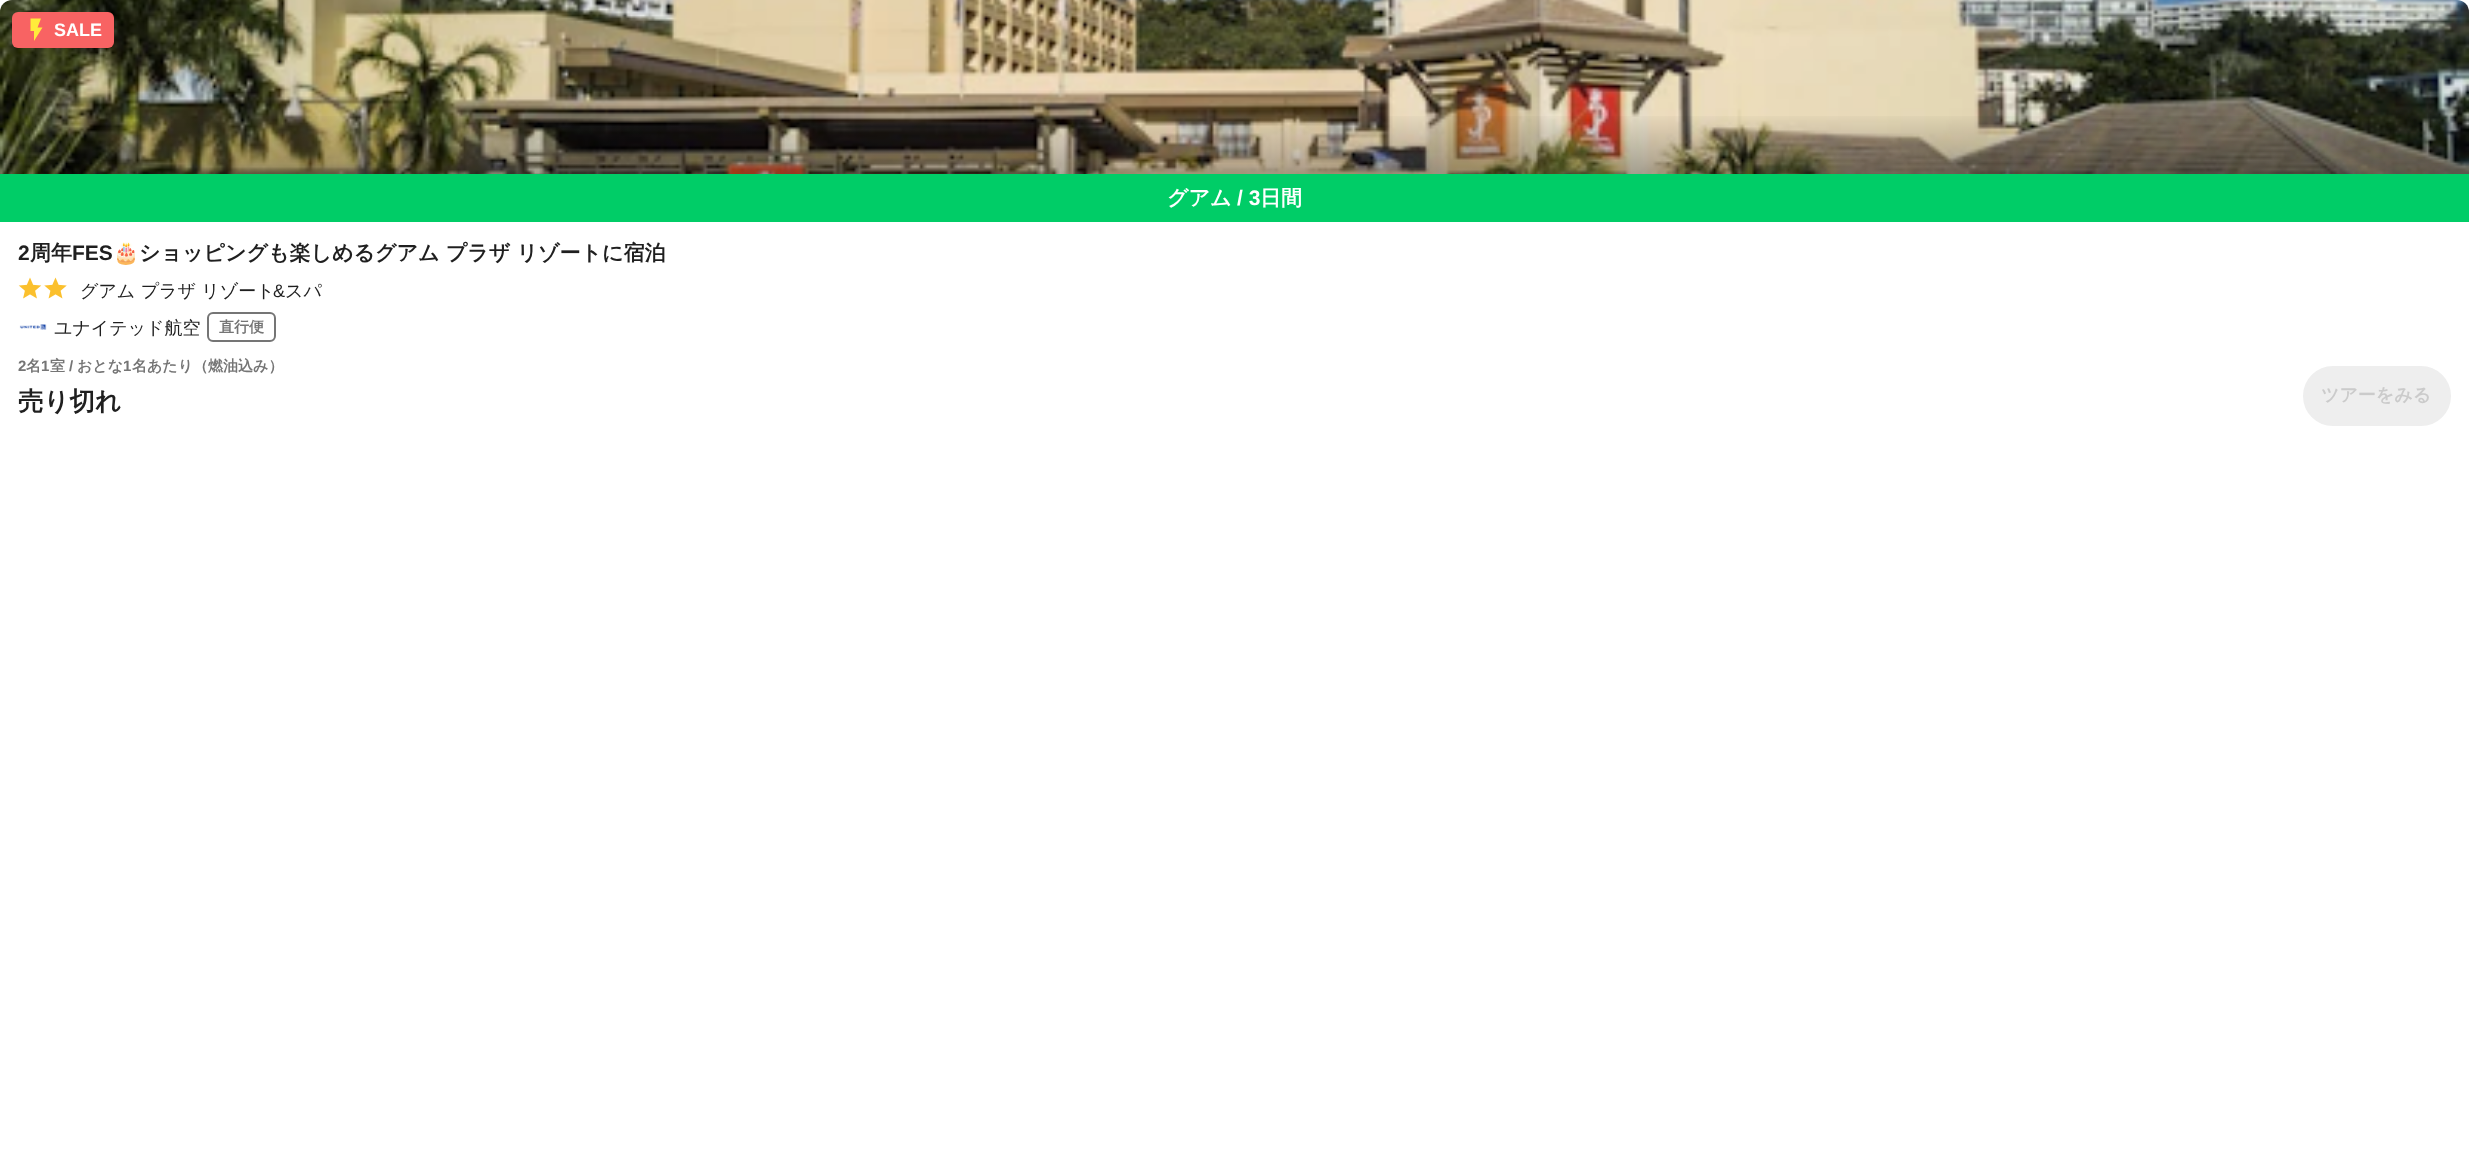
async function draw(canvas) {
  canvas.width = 2469
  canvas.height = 1165
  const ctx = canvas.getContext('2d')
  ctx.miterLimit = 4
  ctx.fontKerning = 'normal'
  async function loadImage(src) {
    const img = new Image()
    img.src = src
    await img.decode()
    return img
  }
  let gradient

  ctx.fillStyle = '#fff'
  ctx.fillRect(0, 0, 2469, 1165)
  ctx.drawImage(await loadImage('image0.png'), 0, 0, 2469, 174)
  gradient = ctx.createLinearGradient(1235, 0, 1235, 222)
  gradient.addColorStop(0.5, '#00000000')
  gradient.addColorStop(1, '#00000080')
  ctx.fillStyle = gradient
  ctx.fillRect(0, 116, 2469, 58)
  ctx.fillStyle = '#f86363'
  ctx.beginPath()
  ctx.roundRect(12, 12, 102, 36, 6)
  ctx.fill()
  ctx.fillStyle = '#ffeb3b'
  ctx.beginPath()
  ctx.moveTo(30.5, 18.5)
  ctx.lineTo(30.5, 31)
  ctx.lineTo(34, 31)
  ctx.lineTo(34, 41)
  ctx.lineTo(42.5, 27.5)
  ctx.lineTo(37.5, 27.5)
  ctx.lineTo(41, 18.5)
  ctx.closePath()
  ctx.fill()
  ctx.font = 'bold 18px Liberation Sans'
  ctx.fillStyle = '#fff'
  ctx.fillText('SALE', 54, 36)
  ctx.fillStyle = '#00cd67'
  ctx.fillRect(0, 174, 2469, 48)
  ctx.font = 'bold 21px WenQuanYi Zen Hei'
  ctx.fillStyle = '#fff'
  ctx.fillText('グアム', 1167, 205)
  ctx.font = 'bold 21px Liberation Sans'
  ctx.fillText('/ 3', 1237, 205)
  ctx.font = 'bold 21px WenQuanYi Zen Hei'
  ctx.fillText('日間', 1260, 205)
  ctx.font = 'bold 21px Liberation Sans'
  ctx.fillStyle = '#1f1f1f'
  ctx.fillText('2', 18, 260)
  ctx.font = 'bold 21px WenQuanYi Zen Hei'
  ctx.fillText('周年', 30, 260)
  ctx.font = 'bold 21px Liberation Sans'
  ctx.fillText('FES', 72, 260)
  ctx.font = 'bold 21px Noto Color Emoji'
  ctx.fillText('🎂', 113, 260)
  ctx.font = 'bold 21px WenQuanYi Zen Hei'
  ctx.fillText('ショッピングも楽しめるグアム プラザ リゾートに宿泊', 139, 260)
  ctx.drawImage(await loadImage('image1.png'), 18, 277, 24, 22)
  ctx.drawImage(await loadImage('image2.png'), 44, 277, 23, 22)
  ctx.font = '500 18px WenQuanYi Zen Hei'
  ctx.fillText('グアム プラザ リゾート', 80, 297)
  ctx.font = '18px Liberation Sans'
  ctx.fillText('&', 273, 297)
  ctx.font = '500 18px WenQuanYi Zen Hei'
  ctx.fillText('スパ', 285, 297)
  ctx.drawImage(await loadImage('image3.png'), 19, 324, 28, 6)
  ctx.fillText('ユナイテッド航空', 54, 334)
  ctx.beginPath()
  ctx.roundRect(208, 313, 67, 28, 5)
  ctx.strokeStyle = '#757575'
  ctx.lineWidth = 2
  ctx.stroke()
  ctx.font = 'bold 15px WenQuanYi Zen Hei'
  ctx.fillStyle = '#757575'
  ctx.fillText('直行便', 219, 332)
  ctx.font = 'bold 15px Liberation Sans'
  ctx.fillText('2', 18, 371)
  ctx.font = 'bold 15px WenQuanYi Zen Hei'
  ctx.fillText('名', 26, 371)
  ctx.font = 'bold 15px Liberation Sans'
  ctx.fillText('1', 41, 371)
  ctx.font = 'bold 15px WenQuanYi Zen Hei'
  ctx.fillText('室', 50, 371)
  ctx.font = 'bold 15px Liberation Sans'
  ctx.fillText('/', 69, 371)
  ctx.font = 'bold 15px WenQuanYi Zen Hei'
  ctx.fillText('おとな', 77, 371)
  ctx.font = 'bold 15px Liberation Sans'
  ctx.fillText('1', 123, 371)
  ctx.font = 'bold 15px WenQuanYi Zen Hei'
  ctx.fillText('名あたり（燃油込み）', 132, 371)
  ctx.font = 'bold 25.5px WenQuanYi Zen Hei'
  ctx.fillStyle = '#1f1f1f'
  ctx.fillText('売り切れ', 18, 410)
  ctx.fillStyle = '#eee'
  ctx.beginPath()
  ctx.roundRect(2304, 367, 146, 58, 29)
  ctx.fill()
  ctx.strokeStyle = '#eee'
  ctx.stroke()
  ctx.font = 'bold 18px WenQuanYi Zen Hei'
  ctx.fillStyle = '#cbcbcb'
  ctx.fillText('ツアーをみる', 2321, 401)
}

draw(document.querySelector('canvas'))
